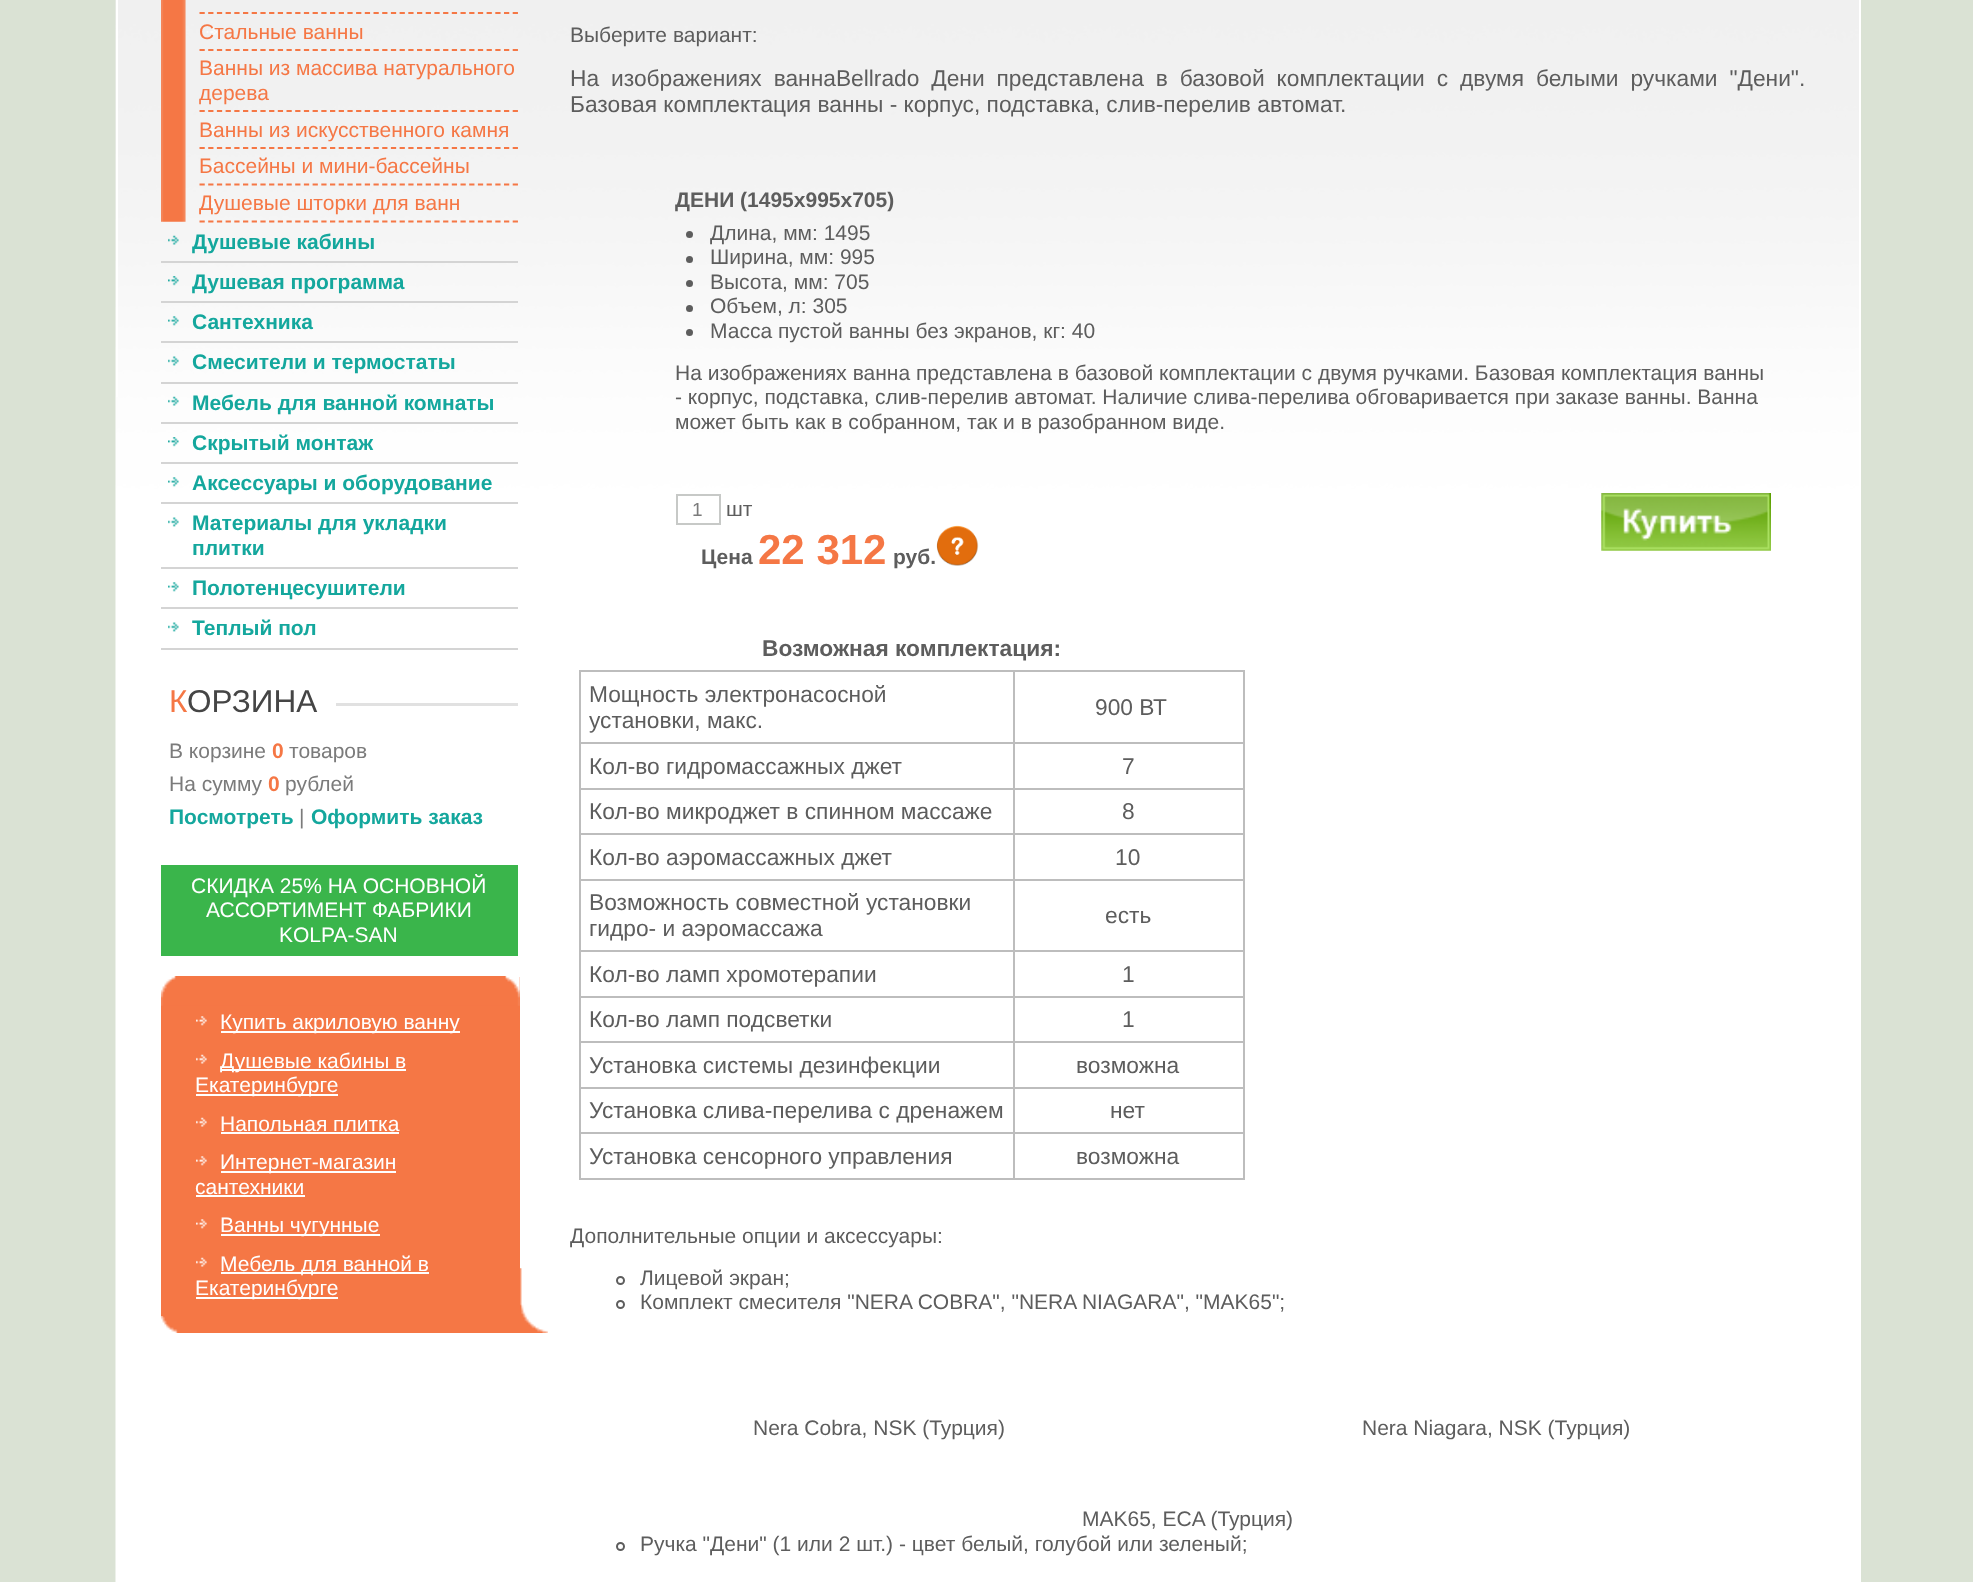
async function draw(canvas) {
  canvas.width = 1973
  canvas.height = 1582
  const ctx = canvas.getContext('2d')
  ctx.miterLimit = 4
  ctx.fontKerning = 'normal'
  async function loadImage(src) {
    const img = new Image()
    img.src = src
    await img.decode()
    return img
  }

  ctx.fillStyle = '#dae2d4'
  ctx.fillRect(0, 0, 1973, 1582)
  ctx.drawImage(await loadImage('image0.png'), 115, 0, 1744, 1582)
  ctx.fillStyle = '#fff'
  ctx.fillRect(1859, 0, 2, 1582)
  ctx.fillRect(116, 0, 2, 397)
  ctx.drawImage(await loadImage('image1.png'), 161, 0, 25, 222)
  ctx.beginPath()
  ctx.moveTo(199.5, 13)
  ctx.lineTo(518, 13)
  ctx.strokeStyle = '#f57745'
  ctx.lineWidth = 1.8
  ctx.setLineDash([5.25, 3.45])
  ctx.stroke()
  ctx.drawImage(await loadImage('image2.png'), 206, 27, 11, 9)
  ctx.beginPath()
  ctx.moveTo(199.5, 50)
  ctx.lineTo(518, 50)
  ctx.stroke()
  ctx.font = '21px Liberation Sans'
  ctx.fillStyle = '#f57745'
  ctx.fillText('Стальные ванны', 199, 39)
  ctx.drawImage(await loadImage('image3.png'), 206, 64, 11, 9)
  ctx.beginPath()
  ctx.moveTo(199.5, 111)
  ctx.lineTo(518, 111)
  ctx.stroke()
  ctx.fillText('Ванны из массива натурального', 199, 75)
  ctx.fillText('дерева', 199, 100)
  ctx.drawImage(await loadImage('image4.png'), 206, 125, 11, 9)
  ctx.beginPath()
  ctx.moveTo(199.5, 148)
  ctx.lineTo(518, 148)
  ctx.stroke()
  ctx.fillText('Ванны из искусственного камня', 199, 137)
  ctx.drawImage(await loadImage('image5.png'), 206, 162, 11, 9)
  ctx.beginPath()
  ctx.moveTo(199.5, 184.5)
  ctx.lineTo(518, 184.5)
  ctx.stroke()
  ctx.fillText('Бассейны и мини-бассейны', 199, 173)
  ctx.drawImage(await loadImage('image6.png'), 206, 199, 11, 9)
  ctx.beginPath()
  ctx.moveTo(199.5, 221.5)
  ctx.lineTo(518, 221.5)
  ctx.stroke()
  ctx.fillText('Душевые шторки для ванн', 199, 210)
  ctx.drawImage(await loadImage('image7.png'), 168, 235, 11, 10)
  ctx.fillStyle = '#d4d4d4'
  ctx.fillRect(161, 261, 357, 2)
  ctx.font = 'bold 21px Liberation Sans'
  ctx.fillStyle = '#14a79d'
  ctx.fillText('Душевые кабины', 192, 249)
  ctx.drawImage(await loadImage('image8.png'), 168, 276, 11, 10)
  ctx.fillStyle = '#d4d4d4'
  ctx.fillRect(161, 301, 357, 2)
  ctx.fillStyle = '#14a79d'
  ctx.fillText('Душевая программа', 192, 289)
  ctx.drawImage(await loadImage('image9.png'), 168, 316, 11, 10)
  ctx.fillStyle = '#d4d4d4'
  ctx.fillRect(161, 341, 357, 2)
  ctx.fillStyle = '#14a79d'
  ctx.fillText('Сантехника', 192, 329)
  ctx.drawImage(await loadImage('image10.png'), 168, 356, 11, 10)
  ctx.fillStyle = '#d4d4d4'
  ctx.fillRect(161, 382, 357, 2)
  ctx.fillStyle = '#14a79d'
  ctx.fillText('Смесители и термостаты', 192, 369)
  ctx.drawImage(await loadImage('image11.png'), 168, 396, 11, 10)
  ctx.fillStyle = '#d4d4d4'
  ctx.fillRect(161, 422, 357, 2)
  ctx.fillStyle = '#14a79d'
  ctx.fillText('Мебель для ванной комнаты', 192, 410)
  ctx.drawImage(await loadImage('image12.png'), 168, 437, 11, 10)
  ctx.fillStyle = '#d4d4d4'
  ctx.fillRect(161, 462, 357, 2)
  ctx.fillStyle = '#14a79d'
  ctx.fillText('Скрытый монтаж', 192, 450)
  ctx.drawImage(await loadImage('image13.png'), 168, 477, 11, 10)
  ctx.fillStyle = '#d4d4d4'
  ctx.fillRect(161, 502, 357, 2)
  ctx.fillStyle = '#14a79d'
  ctx.fillText('Аксессуары и оборудование', 192, 490)
  ctx.drawImage(await loadImage('image14.png'), 168, 517, 11, 10)
  ctx.fillStyle = '#d4d4d4'
  ctx.fillRect(161, 567, 357, 2)
  ctx.fillStyle = '#14a79d'
  ctx.fillText('Материалы для укладки', 192, 530)
  ctx.fillText('плитки', 192, 555)
  ctx.drawImage(await loadImage('image15.png'), 168, 582, 11, 10)
  ctx.fillStyle = '#d4d4d4'
  ctx.fillRect(161, 607, 357, 2)
  ctx.fillStyle = '#14a79d'
  ctx.fillText('Полотенцесушители', 192, 595)
  ctx.drawImage(await loadImage('image14.png'), 168, 622, 11, 10)
  ctx.fillStyle = '#d4d4d4'
  ctx.fillRect(161, 648, 357, 2)
  ctx.fillStyle = '#14a79d'
  ctx.fillText('Теплый пол', 192, 635)
  ctx.fillStyle = '#e1e1e1'
  ctx.fillRect(336, 703, 182, 3)
  ctx.font = '31.5px Liberation Sans'
  ctx.fillStyle = '#f57745'
  ctx.fillText('К', 169, 712)
  ctx.fillStyle = '#454545'
  ctx.fillText('ОРЗИНА', 187, 712)
  ctx.font = '21px Liberation Sans'
  ctx.fillStyle = '#7b7b7b'
  ctx.fillText('В корзине', 169, 758)
  ctx.font = 'bold 21px Liberation Sans'
  ctx.fillStyle = '#f57745'
  ctx.fillText('0', 272, 758)
  ctx.font = '21px Liberation Sans'
  ctx.fillStyle = '#7b7b7b'
  ctx.fillText('товаров', 289, 758)
  ctx.fillText('На сумму', 169, 791)
  ctx.font = 'bold 21px Liberation Sans'
  ctx.fillStyle = '#f57745'
  ctx.fillText('0', 268, 791)
  ctx.font = '21px Liberation Sans'
  ctx.fillStyle = '#7b7b7b'
  ctx.fillText('рублей', 285, 791)
  ctx.font = 'bold 21px Liberation Sans'
  ctx.fillStyle = '#14a79d'
  ctx.fillText('Посмотреть', 169, 824)
  ctx.font = '21px Liberation Sans'
  ctx.fillStyle = '#7b7b7b'
  ctx.fillText('|', 299, 824)
  ctx.font = 'bold 21px Liberation Sans'
  ctx.fillStyle = '#14a79d'
  ctx.fillText('Оформить заказ', 311, 824)
  ctx.fillStyle = '#3ab54b'
  ctx.fillRect(161, 865, 357, 91)
  ctx.font = '21px Liberation Sans'
  ctx.fillStyle = '#fff'
  ctx.fillText('СКИДКА 25% НА ОСНОВНОЙ', 191, 893)
  ctx.fillText('АССОРТИМЕНТ ФАБРИКИ', 206, 917)
  ctx.fillText('KOLPA-SAN', 279, 942)
  ctx.drawImage(await loadImage('image16.png'), 161, 1268, 387, 65)
  ctx.fillStyle = '#f57745'
  ctx.fillRect(161, 977, 359, 339)
  ctx.drawImage(await loadImage('image17.png'), 161, 976, 359, 30)
  ctx.drawImage(await loadImage('image18.png'), 196, 1016, 11, 10)
  ctx.fillStyle = '#fff'
  ctx.fillRect(221, 1031, 239, 2)
  ctx.fillText('Купить акриловую ванну', 220, 1029)
  ctx.drawImage(await loadImage('image19.png'), 196, 1054, 11, 10)
  ctx.fillRect(221, 1069, 185, 2)
  ctx.fillText('Душевые кабины в', 220, 1068)
  ctx.fillRect(196, 1094, 142, 2)
  ctx.fillText('Екатеринбурге', 195, 1092)
  ctx.drawImage(await loadImage('image19.png'), 196, 1117, 11, 10)
  ctx.fillText('Напольная плитка', 220, 1131)
  ctx.fillRect(221, 1132, 178, 2)
  ctx.drawImage(await loadImage('image20.png'), 196, 1156, 11, 10)
  ctx.fillRect(221, 1171, 175, 2)
  ctx.fillText('Интернет-магазин', 220, 1169)
  ctx.fillText('сантехники', 195, 1194)
  ctx.fillRect(196, 1195, 109, 2)
  ctx.drawImage(await loadImage('image18.png'), 196, 1219, 11, 10)
  ctx.fillRect(221, 1234, 159, 2)
  ctx.fillText('Ванны чугунные', 220, 1232)
  ctx.drawImage(await loadImage('image19.png'), 196, 1257, 11, 10)
  ctx.fillRect(221, 1272, 208, 2)
  ctx.fillText('Мебель для ванной в', 220, 1271)
  ctx.fillRect(196, 1297, 142, 2)
  ctx.fillText('Екатеринбурге', 195, 1295)
  ctx.fillStyle = '#5d5d5d'
  ctx.fillText('Выберите вариант:', 570, 42)
  ctx.wordSpacing = '5.6px'
  ctx.font = '22.75px Liberation Sans'
  ctx.fillText('На изображениях ваннаBellrado Дени представлена в базовой комплектации с двумя белыми ручками "Дени".', 570, 86)
  ctx.wordSpacing = '0px'
  ctx.fillText('Базовая комплектация ванны - корпус, подставка, слив-перелив автомат.', 570, 112)
  ctx.font = 'bold 21px Liberation Sans'
  ctx.fillText('ДЕНИ (1495x995x705)', 675, 207)
  ctx.beginPath()
  ctx.arc(689.5, 234.5, 3.5, 0, 2 * Math.PI)
  ctx.fill()
  ctx.font = '21px Liberation Sans'
  ctx.fillText('Длина, мм: 1495', 710, 240)
  ctx.beginPath()
  ctx.arc(689.5, 259.5, 3.5, 0, 2 * Math.PI)
  ctx.fill()
  ctx.fillText('Ширина, мм: 995', 710, 264)
  ctx.beginPath()
  ctx.arc(689.5, 283.5, 3.5, 0, 2 * Math.PI)
  ctx.fill()
  ctx.fillText('Высота, мм: 705', 710, 289)
  ctx.beginPath()
  ctx.arc(689.5, 308.5, 3.5, 0, 2 * Math.PI)
  ctx.fill()
  ctx.fillText('Объем, л: 305', 710, 313)
  ctx.beginPath()
  ctx.arc(689.5, 332.5, 3.5, 0, 2 * Math.PI)
  ctx.fill()
  ctx.fillText('Масса пустой ванны без экранов, кг: 40', 710, 338)
  ctx.fillText('На изображениях ванна представлена в базовой комплектации с двумя ручками. Базовая комплектация ванны', 675, 380)
  ctx.fillText('- корпус, подставка, слив-перелив автомат. Наличие слива-перелива обговаривается при заказе ванны. Ванна', 675, 404)
  ctx.fillText('может быть как в собранном, так и в разобранном виде.', 675, 429)
  ctx.strokeStyle = '#c7c9c7'
  ctx.lineWidth = 2
  ctx.setLineDash([])
  ctx.strokeRect(677, 495, 43, 29)
  ctx.font = '19px Liberation Sans'
  ctx.fillStyle = '#7b7b7b'
  ctx.fillText('1', 692, 516)
  ctx.font = '21px Liberation Sans'
  ctx.fillStyle = '#5d5d5d'
  ctx.fillText('шт', 726, 516)
  ctx.drawImage(await loadImage('image21.png'), 1601, 493, 170, 58)
  ctx.font = 'bold 21px Liberation Sans'
  ctx.fillText('Цена', 701, 564)
  ctx.font = 'bold 42px Liberation Sans'
  ctx.fillStyle = '#f57745'
  ctx.fillText('22 312', 758, 564)
  ctx.font = 'bold 21px Liberation Sans'
  ctx.fillStyle = '#5d5d5d'
  ctx.fillText('руб.', 893, 564)
  ctx.drawImage(await loadImage('image22.png'), 936, 525, 43, 41)
  ctx.font = 'bold 22.75px Liberation Sans'
  ctx.fillText('Возможная комплектация:', 762, 656)
  ctx.fillStyle = '#bdbdbd'
  ctx.fillRect(1013, 670, 231, 2)
  ctx.fillRect(1013, 742, 231, 2)
  ctx.fillRect(1013, 788, 231, 2)
  ctx.fillRect(1013, 833, 231, 2)
  ctx.fillRect(1013, 879, 231, 2)
  ctx.fillRect(1013, 950, 231, 2)
  ctx.fillRect(1013, 996, 231, 2)
  ctx.fillRect(1013, 1041, 231, 2)
  ctx.fillRect(1013, 1087, 231, 2)
  ctx.fillRect(1013, 1132, 231, 2)
  ctx.fillRect(1243, 1132, 2, 48)
  ctx.fillRect(1013, 1178, 231, 2)
  ctx.fillRect(1013, 1132, 2, 48)
  ctx.fillRect(579, 1132, 436, 2)
  ctx.fillRect(1013, 1087, 2, 47)
  ctx.fillRect(579, 1087, 436, 2)
  ctx.fillRect(1013, 1041, 2, 48)
  ctx.fillRect(579, 1041, 436, 2)
  ctx.fillRect(1013, 996, 2, 47)
  ctx.fillRect(579, 996, 436, 2)
  ctx.fillRect(1013, 950, 2, 48)
  ctx.fillRect(579, 950, 436, 2)
  ctx.fillRect(1013, 879, 2, 73)
  ctx.fillRect(579, 879, 436, 2)
  ctx.fillRect(1013, 833, 2, 47)
  ctx.fillRect(579, 833, 436, 2)
  ctx.fillRect(1013, 788, 2, 47)
  ctx.fillRect(579, 788, 436, 2)
  ctx.fillRect(1013, 742, 2, 47)
  ctx.fillRect(579, 742, 436, 2)
  ctx.fillRect(1013, 670, 2, 74)
  ctx.fillRect(579, 670, 436, 2)
  ctx.fillRect(579, 1178, 436, 2)
  ctx.fillRect(579, 1132, 2, 48)
  ctx.fillRect(579, 1087, 2, 47)
  ctx.fillRect(579, 1041, 2, 48)
  ctx.fillRect(579, 996, 2, 47)
  ctx.fillRect(579, 950, 2, 48)
  ctx.fillRect(579, 879, 2, 73)
  ctx.fillRect(579, 833, 2, 47)
  ctx.fillRect(579, 788, 2, 47)
  ctx.fillRect(579, 742, 2, 47)
  ctx.fillRect(579, 670, 2, 74)
  ctx.font = '22.75px Liberation Sans'
  ctx.fillStyle = '#5d5d5d'
  ctx.fillText('Мощность электронасосной', 589, 702)
  ctx.fillText('установки, макс.', 589, 728)
  ctx.fillStyle = '#bdbdbd'
  ctx.fillRect(1243, 1087, 2, 47)
  ctx.fillRect(1243, 1041, 2, 48)
  ctx.fillRect(1243, 996, 2, 47)
  ctx.fillRect(1243, 950, 2, 48)
  ctx.fillRect(1243, 879, 2, 73)
  ctx.fillRect(1243, 833, 2, 47)
  ctx.fillRect(1243, 788, 2, 47)
  ctx.fillRect(1243, 742, 2, 47)
  ctx.fillRect(1243, 670, 2, 74)
  ctx.fillStyle = '#5d5d5d'
  ctx.fillText('900 ВТ', 1095, 715)
  ctx.fillText('Кол-во гидромассажных джет', 589, 774)
  ctx.fillText('7', 1122, 774)
  ctx.fillText('Кол-во микроджет в спинном массаже', 589, 819)
  ctx.fillText('8', 1122, 819)
  ctx.fillText('Кол-во аэромассажных джет', 589, 865)
  ctx.fillText('10', 1115, 865)
  ctx.fillText('Возможность совместной установки', 589, 910)
  ctx.fillText('гидро- и аэромассажа', 589, 936)
  ctx.fillText('есть', 1105, 923)
  ctx.fillText('Кол-во ламп хромотерапии', 589, 982)
  ctx.fillText('1', 1122, 982)
  ctx.fillText('Кол-во ламп подсветки', 589, 1027)
  ctx.fillText('1', 1122, 1027)
  ctx.fillText('Установка системы дезинфекции', 589, 1073)
  ctx.fillText('возможна', 1076, 1073)
  ctx.fillText('Установка слива-перелива с дренажем', 589, 1118)
  ctx.fillText('нет', 1110, 1118)
  ctx.fillText('Установка сенсорного управления', 589, 1164)
  ctx.fillText('возможна', 1076, 1164)
  ctx.font = '21px Liberation Sans'
  ctx.fillText('Дополнительные опции и аксессуары:', 570, 1243)
  ctx.beginPath()
  ctx.arc(620.5, 1280.5, 3.5, 0, 2 * Math.PI)
  ctx.strokeStyle = '#5d5d5d'
  ctx.stroke()
  ctx.fillText('Лицевой экран;', 640, 1285)
  ctx.beginPath()
  ctx.arc(620.5, 1304.5, 3.5, 0, 2 * Math.PI)
  ctx.stroke()
  ctx.fillText('Комплект смесителя "NERA COBRA", "NERA NIAGARA", "MAK65";', 640, 1309)
  ctx.fillText('Nera Cobra, NSK (Турция)', 753, 1435)
  ctx.fillText('Nera Niagara, NSK (Турция)', 1362, 1435)
  ctx.fillText('MAK65, ECA (Турция)', 1082, 1526)
  ctx.beginPath()
  ctx.arc(620.5, 1546.5, 3.5, 0, 2 * Math.PI)
  ctx.stroke()
  ctx.fillText('Ручка "Дени" (1 или 2 шт.) - цвет белый, голубой или зеленый;', 640, 1551)
}

draw(document.querySelector('canvas'))
